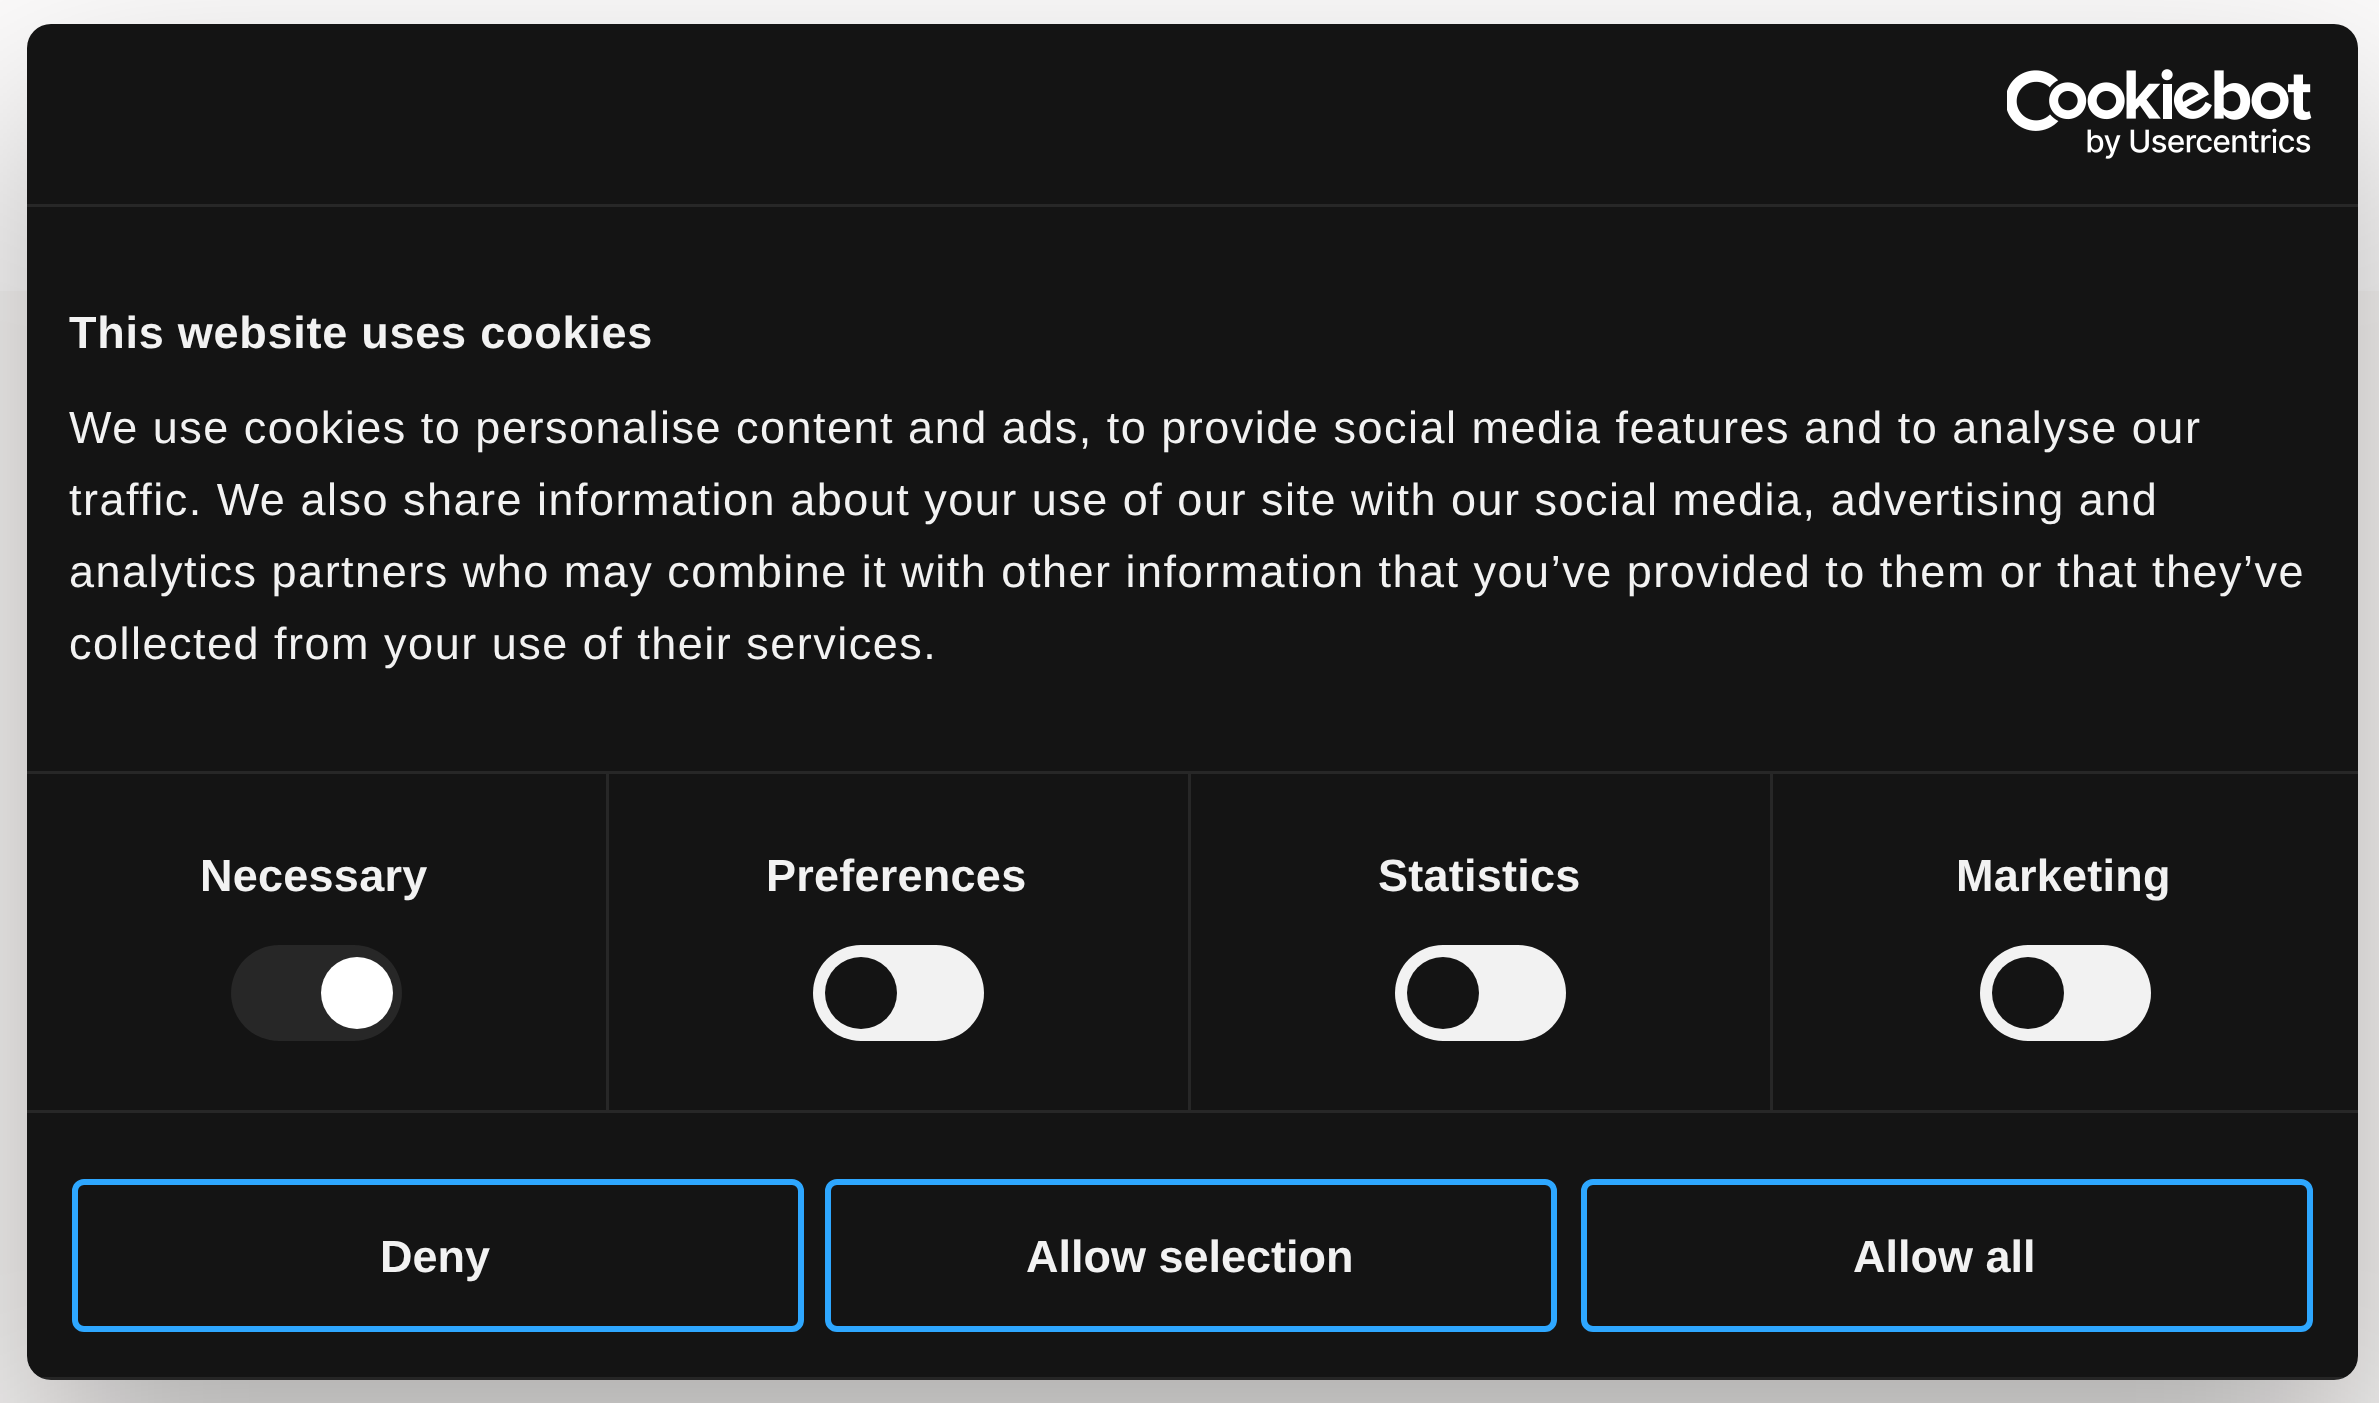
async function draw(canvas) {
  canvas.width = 2379
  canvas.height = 1403
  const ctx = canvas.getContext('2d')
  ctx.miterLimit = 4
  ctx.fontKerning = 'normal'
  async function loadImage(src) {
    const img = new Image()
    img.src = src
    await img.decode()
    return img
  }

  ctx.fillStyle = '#f8f6f5'
  ctx.fillRect(0, 0, 2379, 1403)
  ctx.fillStyle = '#fcfbfb'
  ctx.fillRect(0, 0, 2379, 291)
  ctx.save()
  ctx.beginPath()
  ctx.moveTo(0, 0)
  ctx.lineTo(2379, 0)
  ctx.lineTo(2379, 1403)
  ctx.lineTo(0, 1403)
  ctx.closePath()
  ctx.moveTo(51, 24)
  ctx.lineTo(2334, 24)
  ctx.bezierCurveTo(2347.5, 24, 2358, 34.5, 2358, 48)
  ctx.lineTo(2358, 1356)
  ctx.bezierCurveTo(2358, 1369.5, 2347.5, 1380, 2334, 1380)
  ctx.lineTo(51, 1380)
  ctx.bezierCurveTo(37.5, 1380, 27, 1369.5, 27, 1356)
  ctx.lineTo(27, 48)
  ctx.bezierCurveTo(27, 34.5, 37.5, 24, 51, 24)
  ctx.closePath()
  ctx.clip('evenodd')
  ctx.fillStyle = '#0000004d'
  ctx.filter = 'blur(102px)'
  ctx.beginPath()
  ctx.roundRect(27, 120, 2331, 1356, 24)
  ctx.fill()
  ctx.filter = 'none'
  ctx.restore()
  ctx.fillStyle = '#141414'
  ctx.beginPath()
  ctx.roundRect(27, 24, 2331, 1356, 24)
  ctx.fill()
  ctx.fillStyle = '#272727'
  ctx.fillRect(27, 204, 2331, 3)
  ctx.drawImage(await loadImage('image0.png'), 2007, 69, 305, 90)
  ctx.fillRect(27, 771, 2331, 3)
  ctx.letterSpacing = '0.75px'
  ctx.font = 'bold 45px Liberation Sans'
  ctx.fillStyle = '#f2f2f2'
  ctx.fillText('This website uses cookies', 69, 348)
  ctx.letterSpacing = '1.5px'
  ctx.font = '45px Liberation Sans'
  ctx.fillText('We use cookies to personalise content and ads, to provide social media features and to analyse our', 69, 443)
  ctx.fillText('traffic. We also share information about your use of our site with our social media, advertising and', 69, 515)
  ctx.fillText('analytics partners who may combine it with other information that you’ve provided to them or that they’ve', 69, 587)
  ctx.fillText('collected from your use of their services.', 69, 659)
  ctx.fillStyle = '#272727'
  ctx.fillRect(27, 1110, 2331, 3)
  ctx.fillRect(606, 774, 3, 336)
  ctx.letterSpacing = '0.25px'
  ctx.font = 'bold 45px Liberation Sans'
  ctx.fillStyle = '#f2f2f2'
  ctx.fillText('Necessary', 200, 891)
  ctx.fillStyle = '#272727'
  ctx.beginPath()
  ctx.roundRect(231, 945, 171, 96, 48)
  ctx.fill()
  ctx.fillStyle = '#fff'
  ctx.beginPath()
  ctx.arc(357, 993, 36, 0, 2 * Math.PI)
  ctx.fill()
  ctx.fillStyle = '#272727'
  ctx.fillRect(1188, 774, 3, 336)
  ctx.fillStyle = '#f2f2f2'
  ctx.fillText('Preferences', 766, 891)
  ctx.beginPath()
  ctx.roundRect(813, 945, 171, 96, 48)
  ctx.fill()
  ctx.fillStyle = '#141414'
  ctx.beginPath()
  ctx.arc(861, 993, 36, 0, 2 * Math.PI)
  ctx.fill()
  ctx.fillStyle = '#272727'
  ctx.fillRect(1770, 774, 3, 336)
  ctx.fillStyle = '#f2f2f2'
  ctx.fillText('Statistics', 1378, 891)
  ctx.beginPath()
  ctx.roundRect(1395, 945, 171, 96, 48)
  ctx.fill()
  ctx.fillStyle = '#141414'
  ctx.beginPath()
  ctx.arc(1443, 993, 36, 0, 2 * Math.PI)
  ctx.fill()
  ctx.fillStyle = '#f2f2f2'
  ctx.fillText('Marketing', 1956, 891)
  ctx.beginPath()
  ctx.roundRect(1980, 945, 171, 96, 48)
  ctx.fill()
  ctx.fillStyle = '#141414'
  ctx.beginPath()
  ctx.arc(2028, 993, 36, 0, 2 * Math.PI)
  ctx.fill()
  ctx.save()
  ctx.beginPath()
  ctx.roundRect(27, 24, 2331, 1356, 24)
  ctx.clip()
  ctx.fillStyle = '#ffffff14'
  ctx.fillRect(40, 1377, 2305, 3)
  ctx.restore()
  ctx.beginPath()
  ctx.roundRect(75, 1182, 726, 147, 9)
  ctx.strokeStyle = '#2ea7ff'
  ctx.lineWidth = 6
  ctx.stroke()
  ctx.letterSpacing = '0px'
  ctx.fillStyle = '#f2f2f2'
  ctx.fillText('Deny', 380, 1272)
  ctx.beginPath()
  ctx.roundRect(828, 1182, 726, 147, 9)
  ctx.stroke()
  ctx.fillText('Allow selection', 1026, 1272)
  ctx.beginPath()
  ctx.roundRect(1584, 1182, 726, 147, 9)
  ctx.stroke()
  ctx.fillText('Allow all', 1853, 1272)
}

draw(document.querySelector('canvas'))
